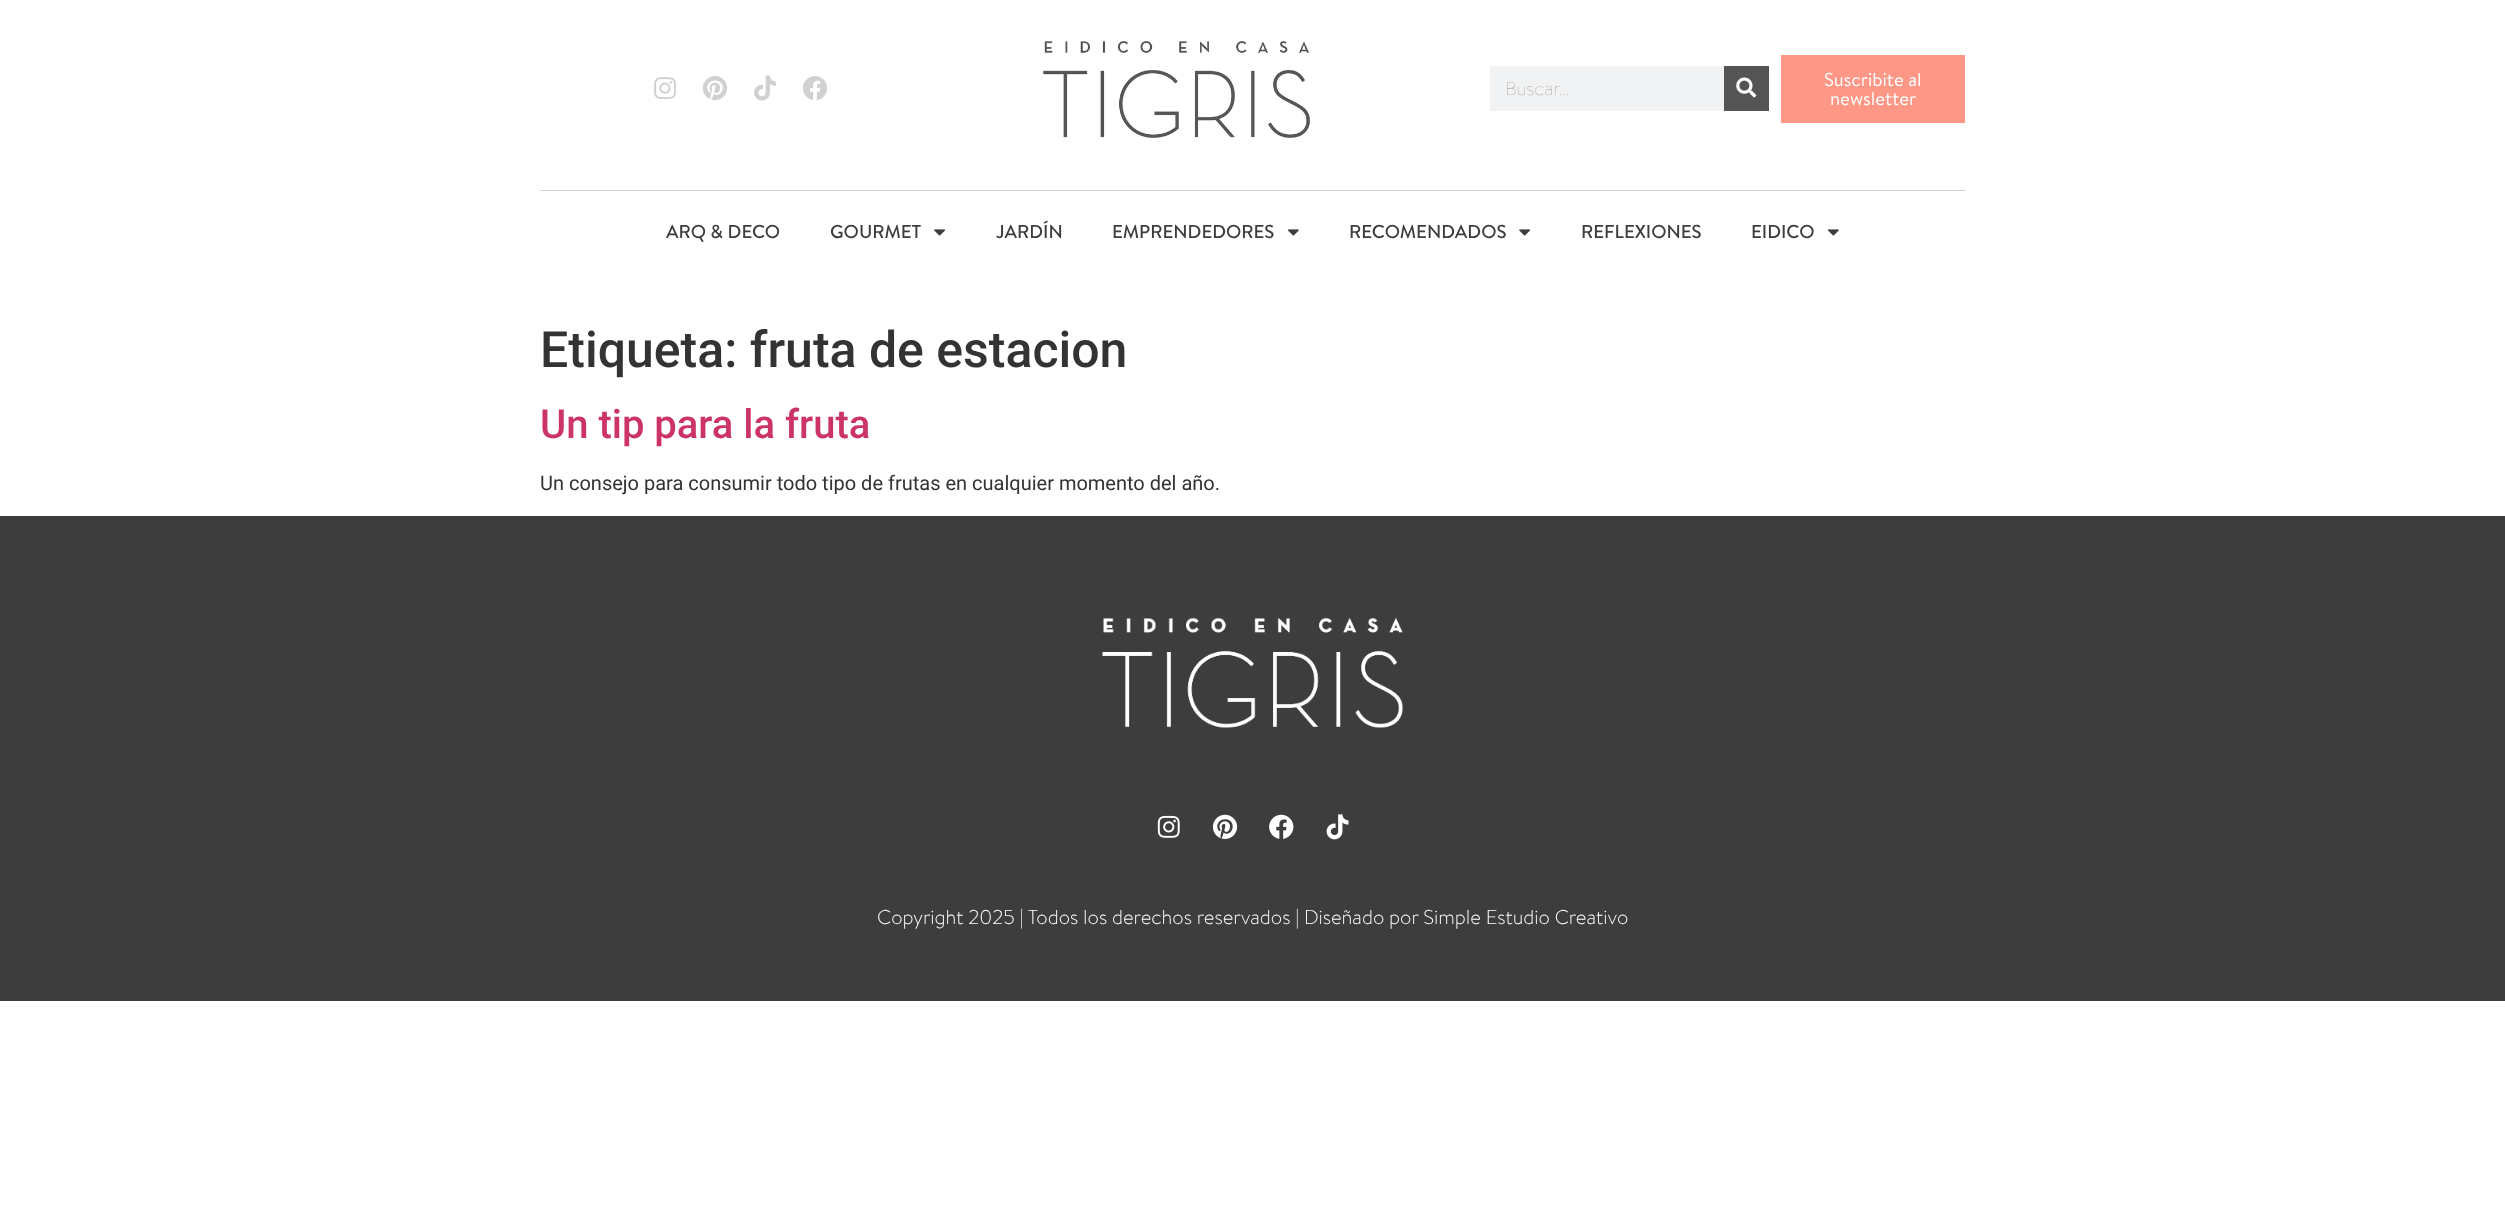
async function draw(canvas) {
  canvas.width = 2505
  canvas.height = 1217
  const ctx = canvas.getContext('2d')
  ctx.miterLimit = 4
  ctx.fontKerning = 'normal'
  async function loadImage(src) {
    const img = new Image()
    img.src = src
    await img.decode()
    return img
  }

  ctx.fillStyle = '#fff'
  ctx.fillRect(0, 0, 2505, 1217)
  ctx.drawImage(await loadImage('image0.png'), 654, 77, 22, 22)
  ctx.drawImage(await loadImage('image1.png'), 703, 76, 24, 25)
  ctx.drawImage(await loadImage('image2.png'), 754, 75, 22, 26)
  ctx.drawImage(await loadImage('image3.png'), 803, 76, 24, 24)
  ctx.drawImage(await loadImage('image4.png'), 1043, 41, 267, 97)
  ctx.fillStyle = '#f1f2f3'
  ctx.fillRect(1490, 66, 234, 45)
  ctx.font = '100 18.75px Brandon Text'
  ctx.fillStyle = '#939394'
  ctx.fillText('Buscar...', 1505, 95)
  ctx.fillStyle = '#545454'
  ctx.fillRect(1724, 66, 45, 45)
  ctx.drawImage(await loadImage('image5.png'), 1736, 77, 21, 21)
  ctx.fillStyle = '#fe9786'
  ctx.fillRect(1781, 55, 184, 68)
  ctx.font = '18.75px Brandon Text'
  ctx.fillStyle = '#fff'
  ctx.fillText('Suscribite al', 1824, 86)
  ctx.fillText('newsletter', 1830, 105)
  ctx.fillStyle = '#d1d1d1'
  ctx.fillRect(540, 190, 1425, 1)
  ctx.font = '500 18.75px Brandon Text'
  ctx.fillStyle = '#3d3d3d'
  ctx.fillText('ARQ & DECO', 666, 238)
  ctx.fillText('GOURMET', 830, 238)
  ctx.drawImage(await loadImage('image6.png'), 934, 229, 11, 7)
  ctx.fillText('JARDÍN', 996, 238)
  ctx.fillText('EMPRENDEDORES', 1112, 238)
  ctx.drawImage(await loadImage('image7.png'), 1287, 229, 12, 7)
  ctx.fillText('RECOMENDADOS', 1349, 238)
  ctx.drawImage(await loadImage('image6.png'), 1519, 229, 11, 7)
  ctx.fillText('REFLEXIONES', 1581, 238)
  ctx.fillText('EIDICO', 1751, 238)
  ctx.drawImage(await loadImage('image7.png'), 1827, 229, 12, 7)
  ctx.font = '500 50px Roboto'
  ctx.fillStyle = '#333'
  ctx.fillText('Etiqueta: fruta de estacion', 540, 367)
  ctx.font = '500 40px Roboto'
  ctx.fillStyle = '#c36'
  ctx.fillText('Un tip para la fruta', 540, 438)
  ctx.font = '20px Roboto'
  ctx.fillStyle = '#333'
  ctx.fillText('Un consejo para consumir todo tipo de frutas en cualquier momento del año.', 540, 490)
  ctx.fillStyle = '#3d3d3d'
  ctx.fillRect(0, 516, 2505, 485)
  ctx.drawImage(await loadImage('image8.png'), 1102, 617, 301, 111)
  ctx.drawImage(await loadImage('image9.png'), 1157, 815, 23, 23)
  ctx.drawImage(await loadImage('image10.png'), 1212, 814, 26, 25)
  ctx.drawImage(await loadImage('image11.png'), 1269, 814, 25, 25)
  ctx.drawImage(await loadImage('image12.png'), 1326, 814, 23, 26)
  ctx.font = '300 20px Brandon Text'
  ctx.fillStyle = '#fff'
  ctx.fillText('Copyright 2025 | Todos los derechos reservados | Diseñado por Simple Estudio Creativo', 877, 924)
}

draw(document.querySelector('canvas'))
